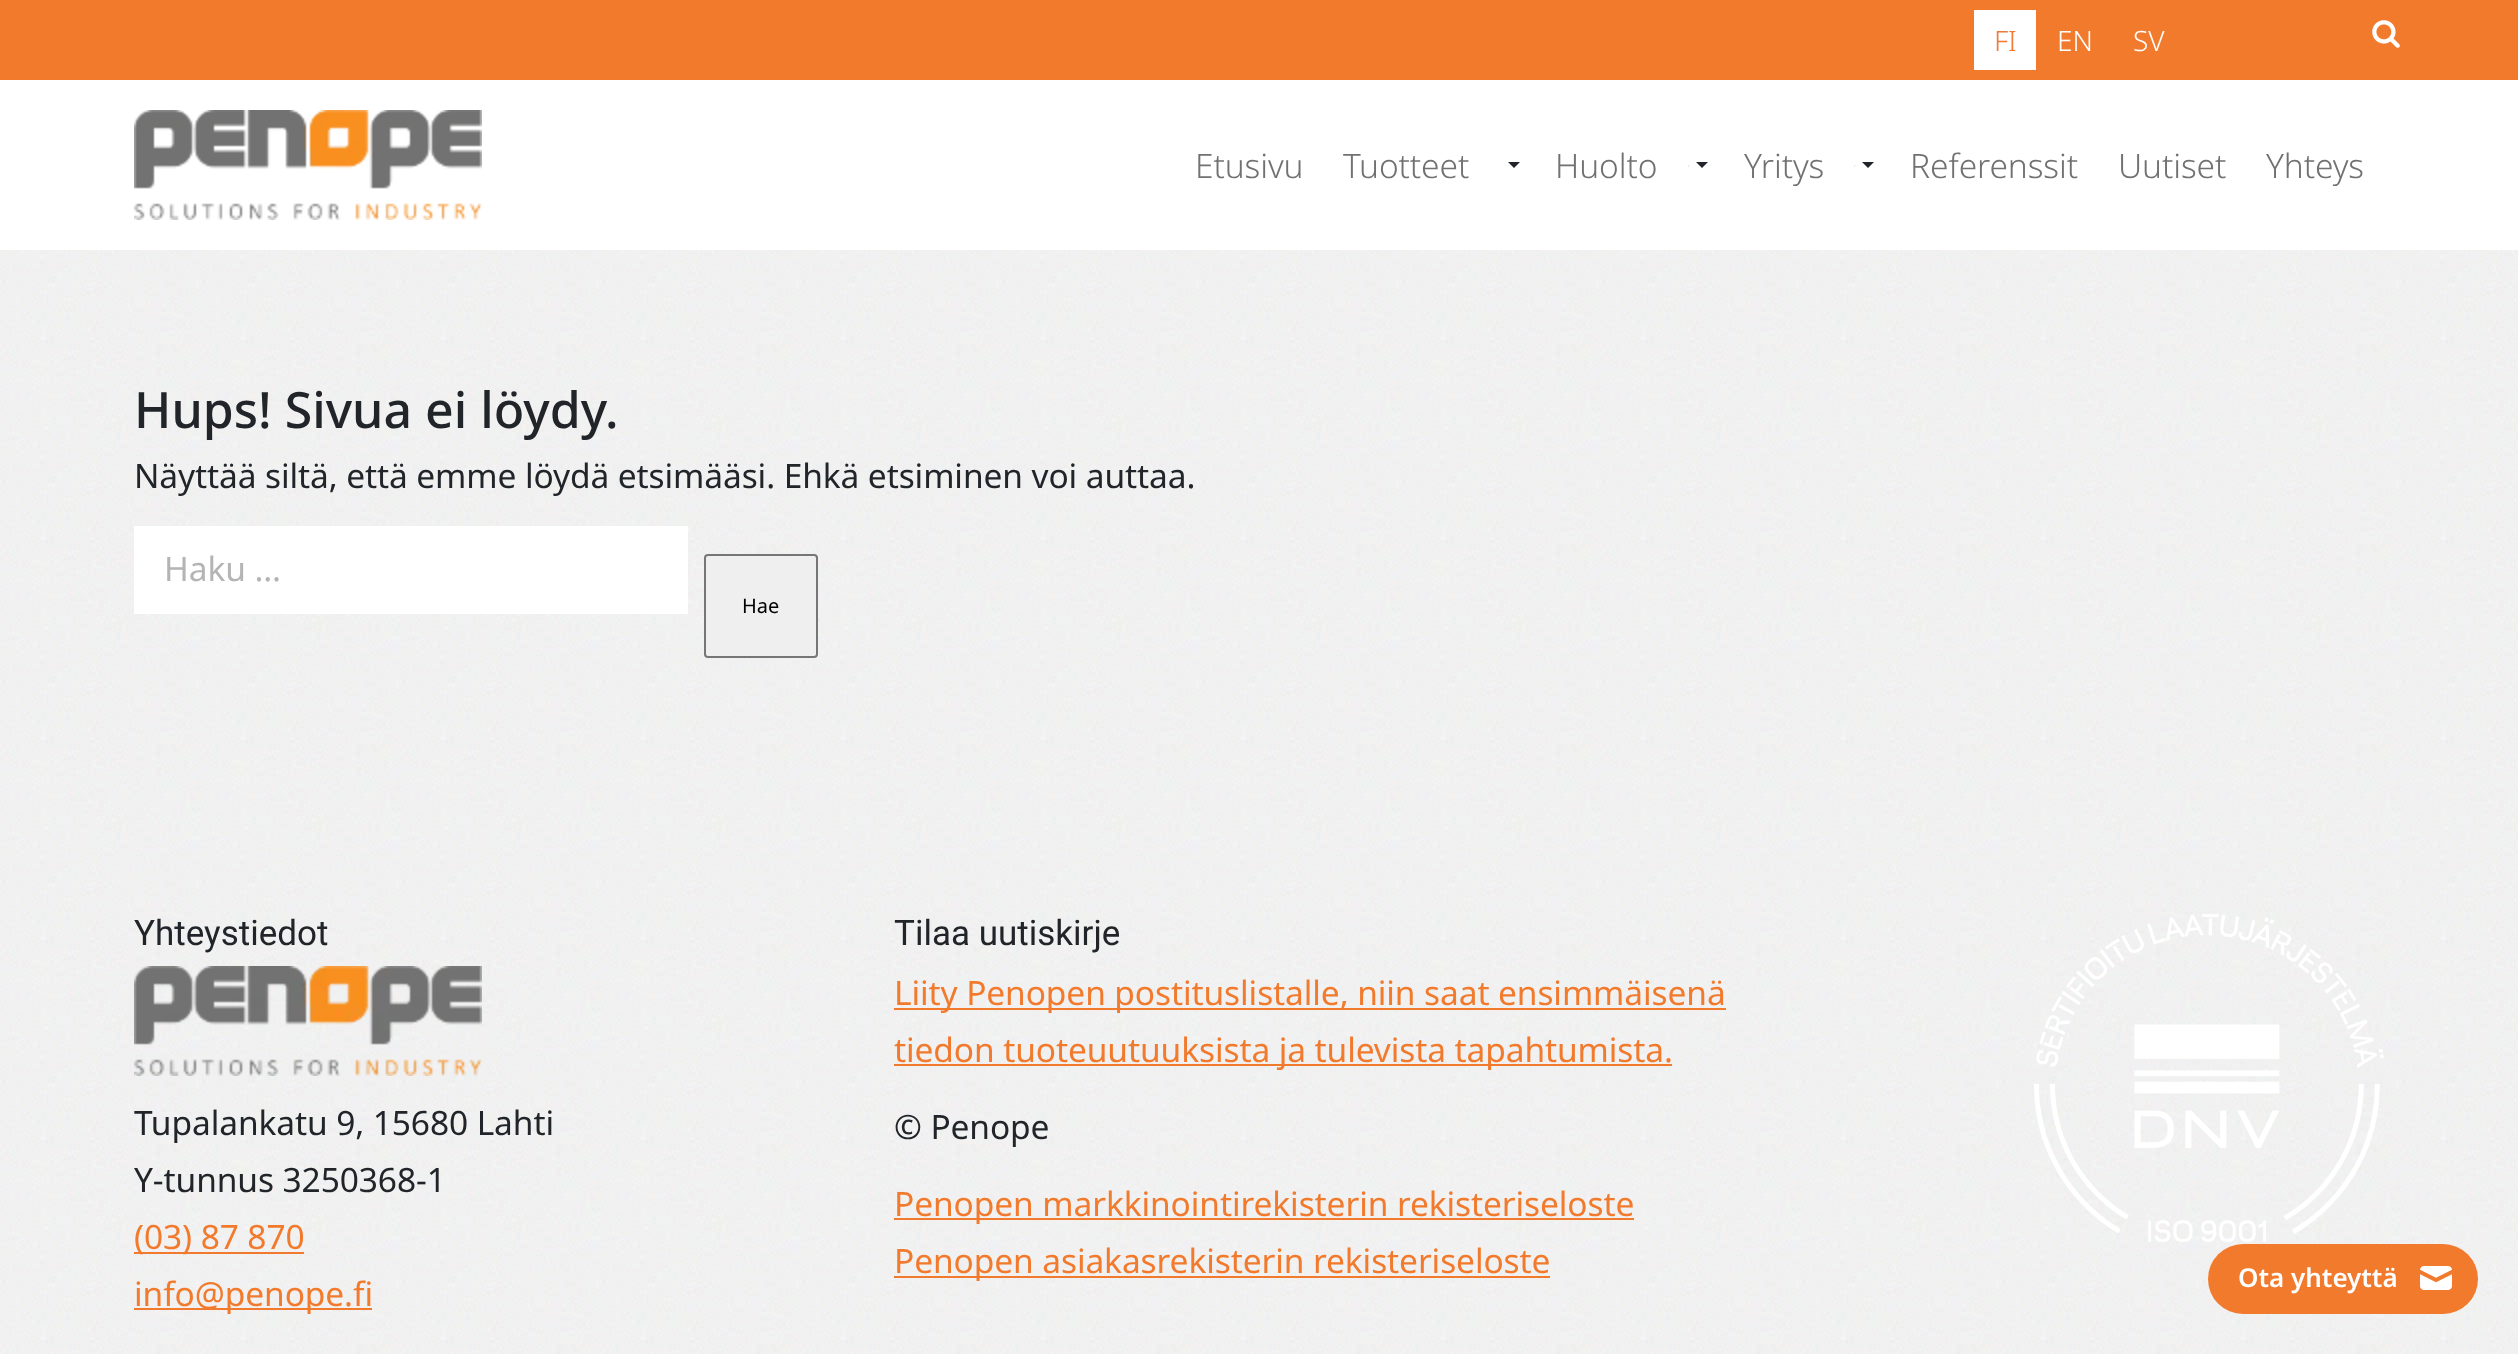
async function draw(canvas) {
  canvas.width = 2518
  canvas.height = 1354
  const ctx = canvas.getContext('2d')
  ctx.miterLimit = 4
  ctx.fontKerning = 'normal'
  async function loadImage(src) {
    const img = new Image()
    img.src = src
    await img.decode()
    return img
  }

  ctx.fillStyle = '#fff'
  ctx.fillRect(0, 0, 2518, 1354)
  ctx.drawImage(await loadImage('image0.png'), 0, 250, 2518, 1104)
  ctx.fillStyle = '#f27a2d'
  ctx.fillRect(0, 0, 2518, 80)
  ctx.fillStyle = '#fff'
  ctx.fillRect(1974, 10, 62, 60)
  ctx.letterSpacing = '-0.1px'
  ctx.font = '300 28px Noto Sans'
  ctx.fillStyle = '#f07a34'
  ctx.fillText('FI', 1994, 51)
  ctx.fillStyle = '#fff'
  ctx.fillText('EN', 2057, 51)
  ctx.fillText('SV', 2133, 51)
  ctx.drawImage(await loadImage('image1.png'), 2372, 20, 28, 28)
  ctx.drawImage(await loadImage('image2.png'), 134, 110, 348, 110)
  ctx.font = '300 33.5px Noto Sans'
  ctx.fillStyle = '#717171'
  ctx.fillText('Etusivu', 1195, 178)
  ctx.fillText('Tuotteet', 1343, 178)
  ctx.fillStyle = '#212529'
  ctx.beginPath()
  ctx.moveTo(1508, 162)
  ctx.lineTo(1520, 162)
  ctx.lineTo(1514, 168)
  ctx.closePath()
  ctx.fill()
  ctx.fillStyle = '#717171'
  ctx.fillText('Huolto', 1555, 178)
  ctx.drawImage(await loadImage('image3.png'), 1688, 165, 2, 2)
  ctx.fillStyle = '#212529'
  ctx.beginPath()
  ctx.moveTo(1696, 162)
  ctx.lineTo(1708, 162)
  ctx.lineTo(1702, 168)
  ctx.closePath()
  ctx.fill()
  ctx.fillStyle = '#717171'
  ctx.fillText('Yritys', 1744, 178)
  ctx.drawImage(await loadImage('image3.png'), 1854, 165, 2, 2)
  ctx.fillStyle = '#212529'
  ctx.beginPath()
  ctx.moveTo(1862, 162)
  ctx.lineTo(1874, 162)
  ctx.lineTo(1868, 168)
  ctx.closePath()
  ctx.fill()
  ctx.fillStyle = '#717171'
  ctx.fillText('Referenssit', 1910, 178)
  ctx.fillText('Uutiset', 2118, 178)
  ctx.fillText('Yhteys', 2266, 178)
  ctx.letterSpacing = '0px'
  ctx.font = '500 50px Noto Sans'
  ctx.fillStyle = '#212529'
  ctx.fillText('Hups! Sivua ei löydy.', 134, 428)
  ctx.letterSpacing = '-0.1px'
  ctx.font = '33.5px Noto Sans'
  ctx.fillText('Näyttää siltä, että emme löydä etsimääsi. Ehkä etsiminen voi auttaa.', 134, 488)
  ctx.fillStyle = '#fff'
  ctx.fillRect(134, 526, 554, 88)
  ctx.fillStyle = '#b4b4b4'
  ctx.fillText('Haku …', 164, 581)
  ctx.fillStyle = '#efefef'
  ctx.beginPath()
  ctx.roundRect(705, 555, 112, 102, 3)
  ctx.fill()
  ctx.strokeStyle = '#767676'
  ctx.lineWidth = 2
  ctx.stroke()
  ctx.letterSpacing = '0px'
  ctx.font = '20px Noto Sans'
  ctx.fillStyle = '#000'
  ctx.fillText('Hae', 742, 613)
  ctx.font = '35px Roboto'
  ctx.fillStyle = '#212529'
  ctx.fillText('Yhteystiedot', 134, 945)
  ctx.drawImage(await loadImage('image4.png'), 134, 966, 348, 110)
  ctx.letterSpacing = '-0.1px'
  ctx.font = '33.5px Noto Sans'
  ctx.fillText('Tupalankatu 9, 15680 Lahti', 134, 1135)
  ctx.fillText('Y-tunnus 3250368-1', 134, 1192)
  ctx.fillStyle = '#f27a2d'
  ctx.fillRect(134, 1252, 170, 2)
  ctx.fillText('(03) 87 870', 134, 1249)
  ctx.fillRect(134, 1308, 238, 2)
  ctx.fillText('info@penope.fi', 134, 1306)
  ctx.letterSpacing = '0px'
  ctx.font = '35px Roboto'
  ctx.fillStyle = '#212529'
  ctx.fillText('Tilaa uutiskirje', 894, 945)
  ctx.fillStyle = '#f27a2d'
  ctx.fillRect(894, 1008, 832, 2)
  ctx.letterSpacing = '-0.1px'
  ctx.font = '33.5px Noto Sans'
  ctx.fillText('Liity Penopen postituslistalle, niin saat ensimmäisenä', 894, 1005)
  ctx.fillRect(894, 1064, 778, 2)
  ctx.fillText('tiedon tuoteuutuuksista ja tulevista tapahtumista.', 894, 1062)
  ctx.fillStyle = '#212529'
  ctx.fillText('© Penope', 894, 1139)
  ctx.fillStyle = '#f27a2d'
  ctx.fillRect(894, 1218, 740, 2)
  ctx.fillText('Penopen markkinointirekisterin rekisteriseloste', 894, 1216)
  ctx.fillRect(894, 1276, 656, 2)
  ctx.fillText('Penopen asiakasrekisterin rekisteriseloste', 894, 1273)
  ctx.drawImage(await loadImage('image5.png'), 2034, 914, 350, 328)
  ctx.beginPath()
  ctx.roundRect(2208, 1244, 270, 70, 35)
  ctx.fill()
  ctx.drawImage(await loadImage('image6.png'), 2420, 1266, 32, 24)
  ctx.letterSpacing = '0px'
  ctx.font = '600 26px Noto Sans'
  ctx.fillStyle = '#fff'
  ctx.fillText('Ota yhteyttä', 2238, 1287)
}

draw(document.querySelector('canvas'))
